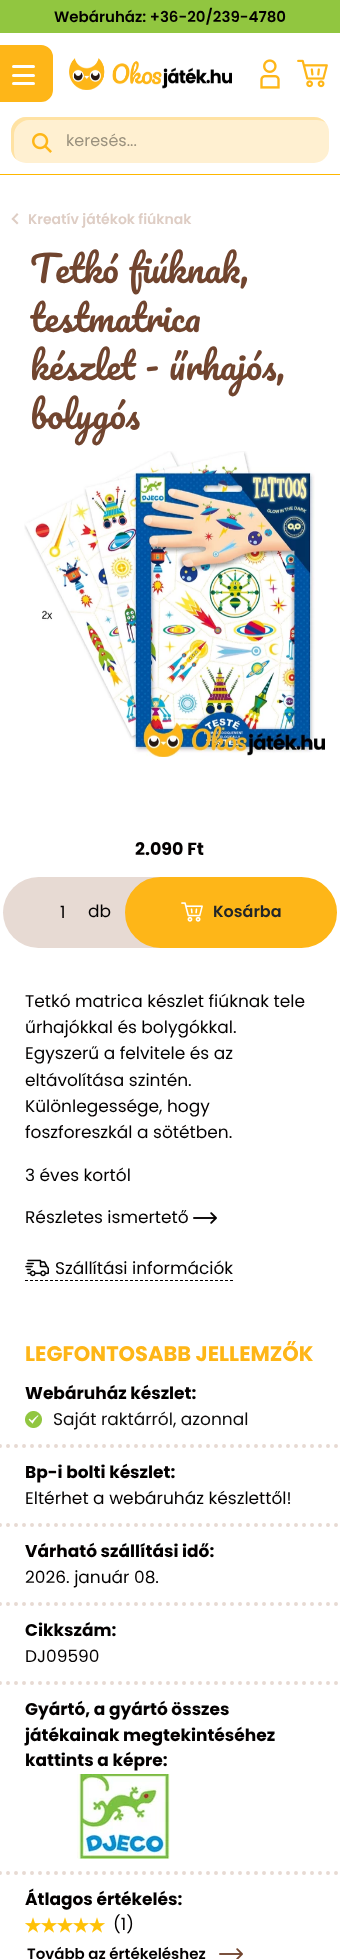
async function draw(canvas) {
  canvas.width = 340
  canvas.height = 1959
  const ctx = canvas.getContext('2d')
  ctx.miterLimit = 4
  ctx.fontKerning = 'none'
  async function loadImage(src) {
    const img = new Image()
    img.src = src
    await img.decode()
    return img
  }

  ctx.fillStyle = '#fff'
  ctx.fillRect(0, 0, 340, 1959)
  ctx.fillStyle = '#feb700'
  ctx.fillRect(0, 174, 340, 1)
  ctx.fillStyle = '#91c640'
  ctx.fillRect(0, 0, 340, 33)
  ctx.font = '600 15px Poppins'
  ctx.fillStyle = '#030000'
  ctx.fillText('Webáruház: +36-20/239-4780', 54, 22)
  ctx.fillStyle = '#feb618'
  ctx.beginPath()
  ctx.roundRect(1, 46, 51, 55, [0, 11, 11, 0])
  ctx.fill()
  ctx.strokeStyle = '#feb618'
  ctx.lineWidth = 2
  ctx.stroke()
  ctx.fillStyle = '#fff'
  ctx.beginPath()
  ctx.roundRect(12, 65, 23, 3, 1.5)
  ctx.fill()
  ctx.beginPath()
  ctx.roundRect(12, 74, 23, 3, 1.5)
  ctx.fill()
  ctx.beginPath()
  ctx.roundRect(12, 82, 23, 3, 1.5)
  ctx.fill()
  ctx.drawImage(await loadImage('image0.png'), 69, 58, 163, 32)
  ctx.drawImage(await loadImage('image1.png'), 260, 59, 20, 30)
  ctx.drawImage(await loadImage('image2.png'), 297, 59, 31, 29)
  ctx.fillStyle = '#fff0d1'
  ctx.beginPath()
  ctx.roundRect(11, 117, 318, 46, 15)
  ctx.fill()
  ctx.fillStyle = '#ffe2a3'
  ctx.beginPath()
  ctx.moveTo(29, 120)
  ctx.lineTo(317, 120)
  ctx.bezierCurveTo(320, 120, 324, 121, 326, 123)
  ctx.bezierCurveTo(324, 120, 319, 117, 314, 117)
  ctx.lineTo(26, 117)
  ctx.bezierCurveTo(18, 117, 11, 124, 11, 132)
  ctx.lineTo(11, 148)
  ctx.bezierCurveTo(11, 153, 14, 158, 17, 160)
  ctx.bezierCurveTo(15, 158, 14, 154, 14, 151)
  ctx.lineTo(14, 135)
  ctx.bezierCurveTo(14, 127, 21, 120, 29, 120)
  ctx.closePath()
  ctx.fill()
  ctx.drawImage(await loadImage('image3.png'), 32, 133, 20, 20)
  ctx.font = '16px Poppins'
  ctx.fillStyle = '#9a917e'
  ctx.fillText('keresés...', 66, 146)
  ctx.fillStyle = '#decdc4'
  ctx.beginPath()
  ctx.moveTo(18.5, 223)
  ctx.lineTo(17, 224.5)
  ctx.lineTo(11.5, 219)
  ctx.lineTo(13, 217.5)
  ctx.closePath()
  ctx.fill()
  ctx.beginPath()
  ctx.moveTo(18.5, 214.5)
  ctx.lineTo(13, 220)
  ctx.lineTo(11.5, 219)
  ctx.lineTo(17, 213)
  ctx.closePath()
  ctx.fill()
  ctx.font = '600 14px Poppins'
  ctx.fillText('Kreatív játékok fiúknak', 28, 224)
  ctx.font = '36px Pacifico'
  ctx.fillStyle = '#71452f'
  ctx.fillText('Tetkó fiúknak,', 30, 283)
  ctx.fillText('testmatrica', 30, 332)
  ctx.fillText('készlet - űrhajós,', 30, 380)
  ctx.fillText('bolygós', 30, 429)
  ctx.drawImage(await loadImage('image4.png'), 24, 451, 301, 306)
  ctx.font = 'bold 17.5px Poppins'
  ctx.fillStyle = '#030000'
  ctx.fillText('2.090 Ft', 135, 855)
  ctx.fillStyle = '#e7dad3'
  ctx.beginPath()
  ctx.roundRect(3, 877, 177, 71, [35.5, 0, 0, 35.5])
  ctx.fill()
  ctx.font = '17px Poppins'
  ctx.fillStyle = '#030000'
  ctx.fillText('1', 60, 918)
  ctx.fillText('db', 88, 917)
  ctx.fillStyle = '#feb618'
  ctx.beginPath()
  ctx.roundRect(126, 878, 210, 69, 34.5)
  ctx.fill()
  ctx.stroke()
  ctx.drawImage(await loadImage('image5.png'), 181, 902, 22, 20)
  ctx.font = '600 16px Poppins'
  ctx.fillStyle = '#212529'
  ctx.fillText('Kosárba', 213, 917)
  ctx.font = '17px Poppins'
  ctx.fillStyle = '#030000'
  ctx.fillText('Tetkó matrica készlet fiúknak tele', 25, 1007)
  ctx.fillText('űrhajókkal és bolygókkal.', 25, 1033)
  ctx.fillText('Egyszerű a felvitele és az', 25, 1059)
  ctx.fillText('eltávolítása szintén.', 25, 1086)
  ctx.fillText('Különlegessége, hogy', 25, 1112)
  ctx.fillText('foszforeszkál a sötétben.', 25, 1138)
  ctx.fillText('3 éves kortól', 25, 1181)
  ctx.fillText('Részletes ismertető', 25, 1223)
  ctx.drawImage(await loadImage('image6.png'), 193, 1212, 24, 12)
  ctx.drawImage(await loadImage('image7.png'), 25, 1259, 24, 18)
  ctx.fillText('Szállítási információk', 55, 1274)
  ctx.beginPath()
  ctx.moveTo(25, 1280.5)
  ctx.lineTo(233, 1280.5)
  ctx.strokeStyle = '#030000'
  ctx.lineWidth = 1
  ctx.setLineDash([3, 2])
  ctx.stroke()
  ctx.font = 'bold 21px Poppins'
  ctx.fillStyle = '#feb618'
  ctx.fillText('LEGFONTOSABB JELLEMZŐK', 25, 1361)
  ctx.beginPath()
  ctx.moveTo(0, 1446)
  ctx.lineTo(340, 1446)
  ctx.strokeStyle = '#e7dad3'
  ctx.lineWidth = 4
  ctx.lineCap = 'round'
  ctx.setLineDash([0, 8])
  ctx.stroke()
  ctx.font = 'bold 17px Poppins'
  ctx.fillStyle = '#030000'
  ctx.fillText('Webáruház készlet:', 25, 1399)
  ctx.drawImage(await loadImage('image8.png'), 25, 1411, 17, 17)
  ctx.font = '17px Poppins'
  ctx.fillStyle = '#0d0b0b'
  ctx.fillText('Saját raktárról, azonnal', 53, 1425)
  ctx.beginPath()
  ctx.moveTo(0, 1525)
  ctx.lineTo(340, 1525)
  ctx.stroke()
  ctx.font = 'bold 17px Poppins'
  ctx.fillStyle = '#030000'
  ctx.fillText('Bp-i bolti készlet:', 25, 1478)
  ctx.font = '17px Poppins'
  ctx.fillText('Eltérhet a webáruház készlettől!', 25, 1504)
  ctx.beginPath()
  ctx.moveTo(0, 1604)
  ctx.lineTo(340, 1604)
  ctx.stroke()
  ctx.font = 'bold 17px Poppins'
  ctx.fillText('Várható szállítási idő:', 25, 1557)
  ctx.font = '17px Poppins'
  ctx.fillText('2026. január 08.', 25, 1583)
  ctx.beginPath()
  ctx.moveTo(0, 1683)
  ctx.lineTo(340, 1683)
  ctx.stroke()
  ctx.font = 'bold 17px Poppins'
  ctx.fillText('Cikkszám:', 25, 1636)
  ctx.font = '17px Poppins'
  ctx.fillText('DJ09590', 25, 1662)
  ctx.beginPath()
  ctx.moveTo(0, 1873)
  ctx.lineTo(340, 1873)
  ctx.stroke()
  ctx.font = 'bold 17px Poppins'
  ctx.fillText('Gyártó, a gyártó összes', 25, 1715)
  ctx.fillText('játékainak megtekintéséhez', 25, 1741)
  ctx.fillText('kattints a képre:', 25, 1766)
  ctx.drawImage(await loadImage('image9.png'), 77, 1774, 93, 85)
  ctx.fillText('Átlagos értékelés:', 25, 1905)
  ctx.drawImage(await loadImage('image10.png'), 25, 1917, 16, 16)
  ctx.drawImage(await loadImage('image10.png'), 41, 1917, 16, 16)
  ctx.drawImage(await loadImage('image10.png'), 57, 1917, 16, 16)
  ctx.drawImage(await loadImage('image10.png'), 73, 1917, 16, 16)
  ctx.drawImage(await loadImage('image10.png'), 89, 1917, 16, 16)
  ctx.font = '17px Poppins'
  ctx.fillText('(1)', 113, 1930)
  ctx.font = '600 15px Poppins'
  ctx.fillText('Tovább az értékeléshez', 27, 1959)
  ctx.drawImage(await loadImage('image11.png'), 219, 1948, 24, 11)
}

draw(document.querySelector('canvas'))
